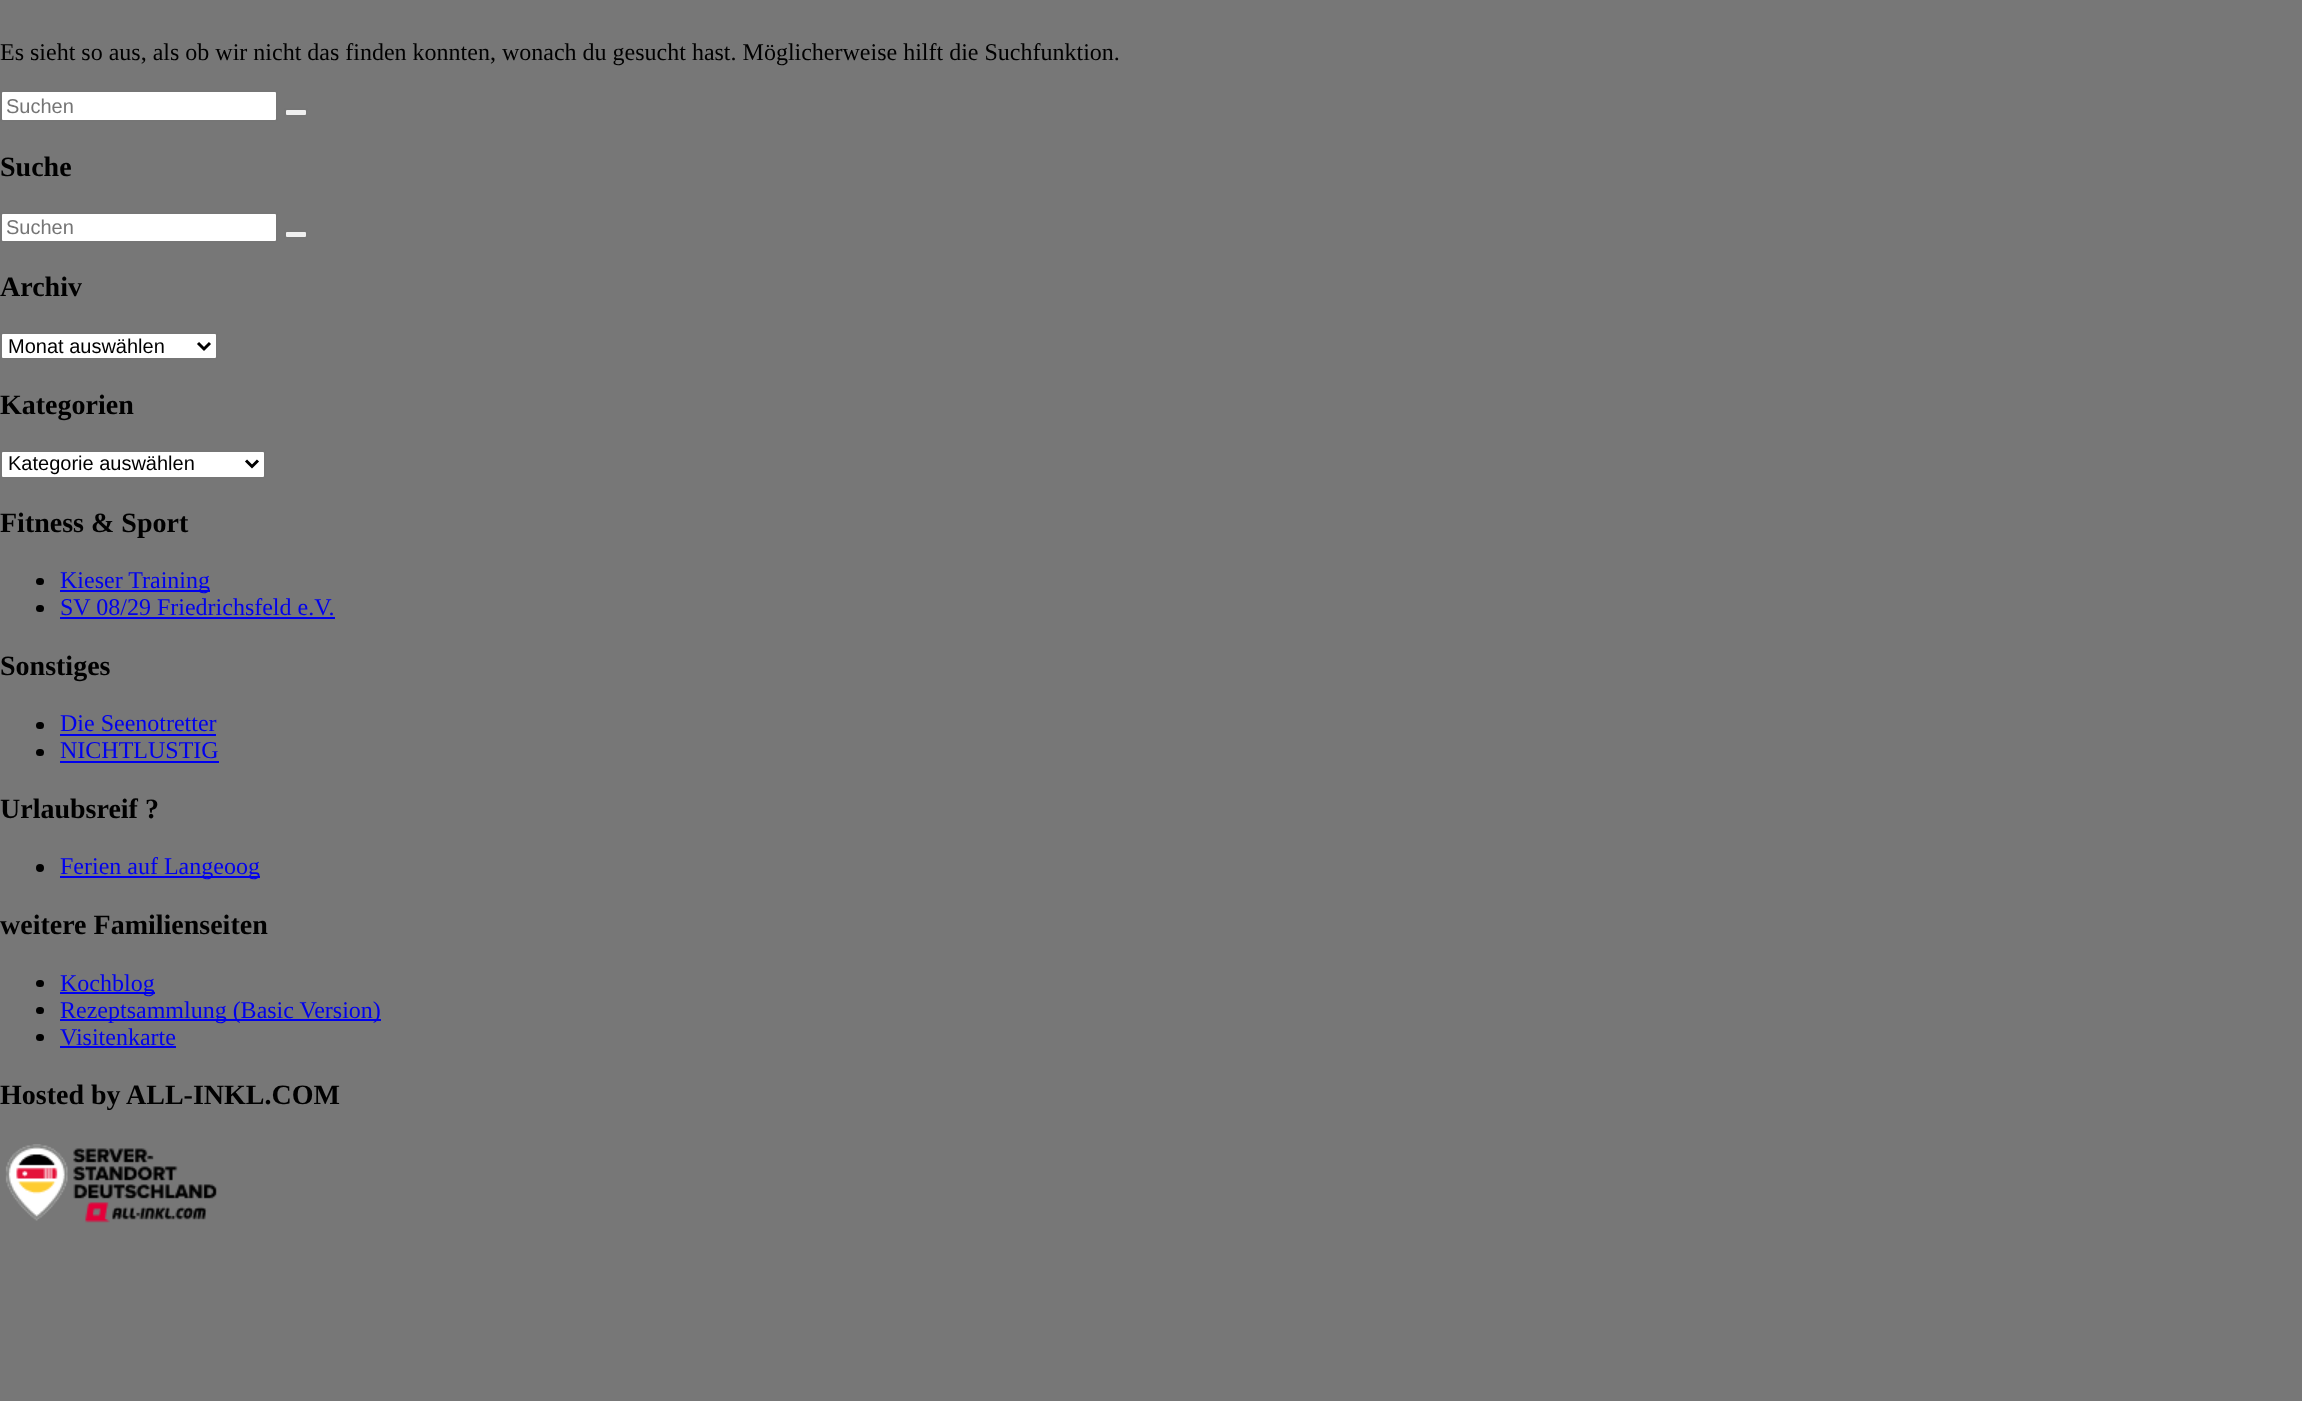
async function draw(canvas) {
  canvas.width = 2302
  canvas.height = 1401
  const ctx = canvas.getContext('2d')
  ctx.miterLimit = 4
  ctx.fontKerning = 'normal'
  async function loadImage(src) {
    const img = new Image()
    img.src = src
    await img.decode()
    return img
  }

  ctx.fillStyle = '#777'
  ctx.fillRect(0, 0, 2302, 1401)
  ctx.font = '24px Liberation Serif'
  ctx.fillStyle = '#000'
  ctx.fillText('Es sieht so aus, als ob wir nicht das finden konnten, wonach du gesucht hast. Möglicherweise hilft die Suchfunktion.', 0, 60)
  ctx.fillStyle = '#fff'
  ctx.beginPath()
  ctx.roundRect(1, 91, 276, 30, 2)
  ctx.fill()
  ctx.strokeStyle = '#767676'
  ctx.lineWidth = 2
  ctx.stroke()
  ctx.font = '20px Liberation Sans'
  ctx.fillStyle = '#757575'
  ctx.fillText('Suchen', 6, 113)
  ctx.fillStyle = '#efefef'
  ctx.beginPath()
  ctx.roundRect(285, 109, 22, 7, 2)
  ctx.fill()
  ctx.stroke()
  ctx.font = 'bold 28px Liberation Serif'
  ctx.fillStyle = '#000'
  ctx.fillText('Suche', 0, 176)
  ctx.fillStyle = '#fff'
  ctx.beginPath()
  ctx.roundRect(1, 213, 276, 29, 2)
  ctx.fill()
  ctx.stroke()
  ctx.font = '20px Liberation Sans'
  ctx.fillStyle = '#757575'
  ctx.fillText('Suchen', 6, 234)
  ctx.fillStyle = '#efefef'
  ctx.beginPath()
  ctx.roundRect(285, 231, 22, 7, 2)
  ctx.fill()
  ctx.stroke()
  ctx.font = 'bold 28px Liberation Serif'
  ctx.fillStyle = '#000'
  ctx.fillText('Archiv', 0, 296)
  ctx.fillStyle = '#fff'
  ctx.beginPath()
  ctx.roundRect(1, 333, 216, 26, 2)
  ctx.fill()
  ctx.stroke()
  ctx.beginPath()
  ctx.moveTo(198, 343)
  ctx.lineTo(204, 349)
  ctx.lineTo(210, 343)
  ctx.strokeStyle = '#000'
  ctx.lineWidth = 3
  ctx.stroke()
  ctx.font = '20px Liberation Sans'
  ctx.fillStyle = '#000'
  ctx.fillText('Monat auswählen', 8, 353)
  ctx.font = 'bold 28px Liberation Serif'
  ctx.fillText('Kategorien', 0, 414)
  ctx.fillStyle = '#fff'
  ctx.beginPath()
  ctx.roundRect(1, 451, 264, 27, 2)
  ctx.fill()
  ctx.strokeStyle = '#767676'
  ctx.lineWidth = 2
  ctx.stroke()
  ctx.beginPath()
  ctx.moveTo(246, 460.5)
  ctx.lineTo(252, 466.5)
  ctx.lineTo(258, 460.5)
  ctx.strokeStyle = '#000'
  ctx.lineWidth = 3
  ctx.stroke()
  ctx.font = '20px Liberation Sans'
  ctx.fillStyle = '#000'
  ctx.fillText('Kategorie auswählen', 8, 470)
  ctx.font = 'bold 28px Liberation Serif'
  ctx.fillText('Fitness & Sport', 0, 532)
  ctx.beginPath()
  ctx.roundRect(36, 578, 8, 7, 3.5)
  ctx.fill()
  ctx.fillStyle = '#00e'
  ctx.fillRect(60, 590, 150, 2)
  ctx.font = '24px Liberation Serif'
  ctx.fillText('Kieser Training', 60, 588)
  ctx.fillStyle = '#000'
  ctx.beginPath()
  ctx.roundRect(36, 605, 8, 7, 3.5)
  ctx.fill()
  ctx.fillStyle = '#00e'
  ctx.fillText('SV 08/29 Friedrichsfeld e.V.', 60, 615)
  ctx.fillRect(60, 617, 275, 2)
  ctx.font = 'bold 28px Liberation Serif'
  ctx.fillStyle = '#000'
  ctx.fillText('Sonstiges', 0, 675)
  ctx.beginPath()
  ctx.roundRect(36, 722, 8, 7, 3.5)
  ctx.fill()
  ctx.font = '24px Liberation Serif'
  ctx.fillStyle = '#00e'
  ctx.fillText('Die Seenotretter', 60, 731)
  ctx.fillRect(60, 734, 156, 2)
  ctx.fillStyle = '#000'
  ctx.beginPath()
  ctx.roundRect(36, 749, 8, 7, 3.5)
  ctx.fill()
  ctx.fillStyle = '#00e'
  ctx.fillText('NICHTLUSTIG', 60, 758)
  ctx.fillRect(60, 761, 159, 2)
  ctx.font = 'bold 28px Liberation Serif'
  ctx.fillStyle = '#000'
  ctx.fillText('Urlaubsreif ?', 0, 818)
  ctx.beginPath()
  ctx.arc(40, 868, 4, 0, 2 * Math.PI)
  ctx.fill()
  ctx.fillStyle = '#00e'
  ctx.fillRect(60, 876, 200, 2)
  ctx.font = '24px Liberation Serif'
  ctx.fillText('Ferien auf Langeoog', 60, 874)
  ctx.font = 'bold 28px Liberation Serif'
  ctx.fillStyle = '#000'
  ctx.fillText('weitere Familienseiten', 0, 934)
  ctx.beginPath()
  ctx.roundRect(36, 980, 8, 7, 3.5)
  ctx.fill()
  ctx.fillStyle = '#00e'
  ctx.fillRect(60, 992, 95, 2)
  ctx.font = '24px Liberation Serif'
  ctx.fillText('Kochblog', 60, 991)
  ctx.fillStyle = '#000'
  ctx.beginPath()
  ctx.roundRect(36, 1007, 8, 7, 3.5)
  ctx.fill()
  ctx.fillStyle = '#00e'
  ctx.fillRect(60, 1019, 321, 2)
  ctx.fillText('Rezeptsammlung (Basic Version)', 60, 1018)
  ctx.fillStyle = '#000'
  ctx.beginPath()
  ctx.roundRect(36, 1034, 8, 7, 3.5)
  ctx.fill()
  ctx.fillStyle = '#00e'
  ctx.fillText('Visitenkarte', 60, 1045)
  ctx.fillRect(60, 1046, 116, 2)
  ctx.font = 'bold 28px Liberation Serif'
  ctx.fillStyle = '#000'
  ctx.fillText('Hosted by ALL-INKL.COM', 0, 1104)
  ctx.drawImage(await loadImage('image0.png'), 5, 1144, 212, 79)
}

draw(document.querySelector('canvas'))
